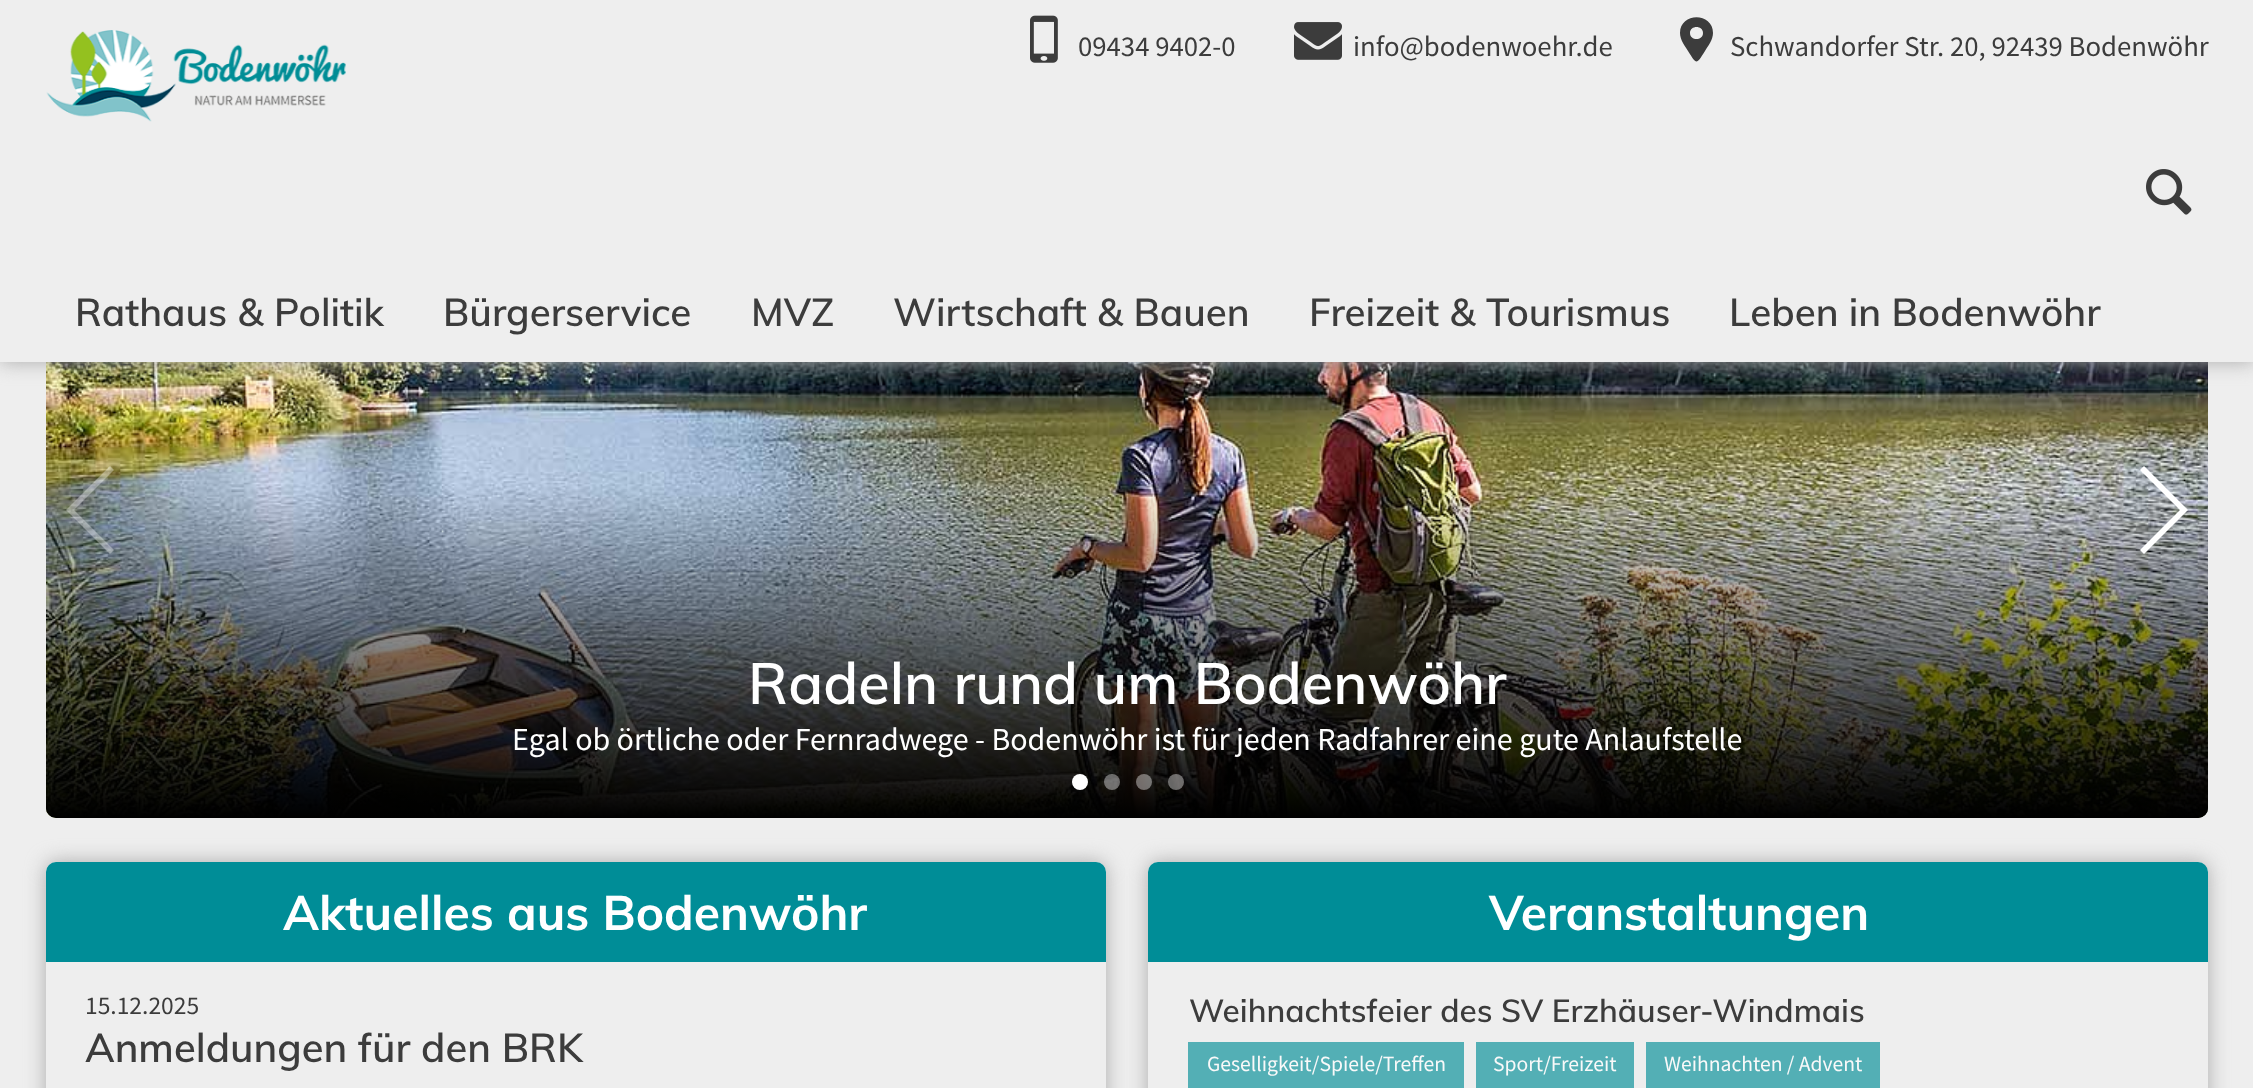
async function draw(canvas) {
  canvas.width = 2253
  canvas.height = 1088
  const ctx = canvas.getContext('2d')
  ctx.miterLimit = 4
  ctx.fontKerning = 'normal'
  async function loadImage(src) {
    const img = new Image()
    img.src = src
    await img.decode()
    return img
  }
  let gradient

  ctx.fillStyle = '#eee'
  ctx.fillRect(0, 0, 2253, 1088)
  ctx.drawImage(await loadImage('image4.png'), 46, 362, 2162, 456)
  ctx.fillStyle = '#aaa'
  ctx.filter = 'blur(10px)'
  ctx.beginPath()
  ctx.rect(0, 0, 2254, 362)
  ctx.fill()
  ctx.filter = 'none'
  ctx.fillStyle = '#eee'
  ctx.fillRect(0, 0, 2253, 362)
  ctx.drawImage(await loadImage('image0.png'), 46, 30, 300, 92)
  ctx.drawImage(await loadImage('image1.png'), 1030, 15, 28, 48)
  ctx.font = '28.75px Source Sans Pro'
  ctx.fillStyle = '#3c3c3c'
  ctx.fillText('09434 9402-0', 1078, 56)
  ctx.drawImage(await loadImage('image2.png'), 1294, 22, 48, 38)
  ctx.fillText('info@bodenwoehr.de', 1353, 56)
  ctx.beginPath()
  ctx.moveTo(1680, 33)
  ctx.bezierCurveTo(1680, 12, 1713, 12, 1713, 33)
  ctx.bezierCurveTo(1713, 40, 1708, 46, 1705, 51)
  ctx.bezierCurveTo(1696, 65, 1697, 65, 1688, 51)
  ctx.bezierCurveTo(1685, 46, 1680, 40, 1680, 33)
  ctx.closePath()
  ctx.moveTo(1690, 33)
  ctx.bezierCurveTo(1690, 41, 1703, 41, 1703, 33)
  ctx.bezierCurveTo(1703, 25, 1690, 25, 1690, 33)
  ctx.closePath()
  ctx.fill()
  ctx.fillText('Schwandorfer Str. 20, 92439 Bodenwöhr', 1730, 56)
  ctx.drawImage(await loadImage('image3.png'), 2146, 169, 46, 46)
  ctx.font = '600 38.5px Muli'
  ctx.fillText('Rathaus & Politik', 75, 326)
  ctx.fillText('Bürgerservice', 443, 326)
  ctx.fillText('MVZ', 751, 326)
  ctx.fillText('Wirtschaft & Bauen', 893, 326)
  ctx.fillText('Freizeit & Tourismus', 1309, 326)
  ctx.fillText('Leben in Bodenwöhr', 1729, 326)
  gradient = ctx.createLinearGradient(1128, 486, 1128, 818)
  gradient.addColorStop(0, '#00000000')
  gradient.addColorStop(1, '#000')
  ctx.fillStyle = gradient
  ctx.beginPath()
  ctx.roundRect(46, 486, 2162, 332, [0, 0, 10, 10])
  ctx.fill()
  ctx.fillStyle = '#ffffff59'
  ctx.beginPath()
  ctx.moveTo(66, 510)
  ctx.lineTo(110, 466)
  ctx.lineTo(114, 470)
  ctx.lineTo(74, 510)
  ctx.lineTo(114, 550)
  ctx.lineTo(110, 554)
  ctx.closePath()
  ctx.fill()
  ctx.fillStyle = '#fff'
  ctx.beginPath()
  ctx.moveTo(2188, 510)
  ctx.lineTo(2144, 554)
  ctx.lineTo(2140, 550)
  ctx.lineTo(2180, 510)
  ctx.lineTo(2140, 470)
  ctx.lineTo(2144, 466)
  ctx.closePath()
  ctx.fill()
  ctx.font = '600 57.6px Muli'
  ctx.fillText('Radeln rund um Bodenwöhr', 748, 704)
  ctx.font = '32px Source Sans Pro'
  ctx.fillText('Egal ob örtliche oder Fernradwege - Bodenwöhr ist für jeden Radfahrer eine gute Anlaufstelle', 512, 750)
  ctx.beginPath()
  ctx.arc(1080, 782, 8, 0, 2 * Math.PI)
  ctx.fill()
  ctx.fillStyle = '#ffffff66'
  ctx.beginPath()
  ctx.arc(1112, 782, 8, 0, 2 * Math.PI)
  ctx.fill()
  ctx.beginPath()
  ctx.arc(1144, 782, 8, 0, 2 * Math.PI)
  ctx.fill()
  ctx.beginPath()
  ctx.arc(1176, 782, 8, 0, 2 * Math.PI)
  ctx.fill()
  ctx.save()
  ctx.beginPath()
  ctx.moveTo(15, 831)
  ctx.lineTo(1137, 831)
  ctx.lineTo(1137, 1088)
  ctx.lineTo(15, 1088)
  ctx.closePath()
  ctx.moveTo(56, 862)
  ctx.lineTo(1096, 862)
  ctx.bezierCurveTo(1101.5, 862, 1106, 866.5, 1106, 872)
  ctx.lineTo(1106, 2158)
  ctx.bezierCurveTo(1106, 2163.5, 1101.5, 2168, 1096, 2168)
  ctx.lineTo(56, 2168)
  ctx.bezierCurveTo(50.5, 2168, 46, 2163.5, 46, 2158)
  ctx.lineTo(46, 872)
  ctx.bezierCurveTo(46, 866.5, 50.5, 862, 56, 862)
  ctx.closePath()
  ctx.clip('evenodd')
  ctx.fillStyle = '#aaa'
  ctx.filter = 'blur(10px)'
  ctx.beginPath()
  ctx.roundRect(46, 862, 1060, 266, 10)
  ctx.fill()
  ctx.filter = 'none'
  ctx.restore()
  ctx.fillStyle = '#008d97'
  ctx.beginPath()
  ctx.roundRect(46, 862, 1060, 100, [10, 10, 0, 0])
  ctx.fill()
  ctx.font = 'bold 48px Muli'
  ctx.fillStyle = '#fff'
  ctx.fillText('Aktuelles aus Bodenwöhr', 283, 930)
  ctx.font = '25.5px Source Sans Pro'
  ctx.fillStyle = '#3c3c3c'
  ctx.fillText('15.12.2025', 85, 1014)
  ctx.font = '600 40px Muli'
  ctx.fillText('Anmeldungen für den BRK', 85, 1062)
  ctx.save()
  ctx.beginPath()
  ctx.moveTo(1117, 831)
  ctx.lineTo(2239, 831)
  ctx.lineTo(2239, 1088)
  ctx.lineTo(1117, 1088)
  ctx.closePath()
  ctx.moveTo(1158, 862)
  ctx.lineTo(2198, 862)
  ctx.bezierCurveTo(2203.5, 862, 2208, 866.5, 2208, 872)
  ctx.lineTo(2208, 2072)
  ctx.bezierCurveTo(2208, 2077.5, 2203.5, 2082, 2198, 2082)
  ctx.lineTo(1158, 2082)
  ctx.bezierCurveTo(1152.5, 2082, 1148, 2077.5, 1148, 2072)
  ctx.lineTo(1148, 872)
  ctx.bezierCurveTo(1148, 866.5, 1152.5, 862, 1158, 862)
  ctx.closePath()
  ctx.clip('evenodd')
  ctx.fillStyle = '#aaa'
  ctx.filter = 'blur(10px)'
  ctx.beginPath()
  ctx.roundRect(1148, 862, 1060, 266, 10)
  ctx.fill()
  ctx.filter = 'none'
  ctx.restore()
  ctx.fillStyle = '#008d97'
  ctx.beginPath()
  ctx.roundRect(1148, 862, 1060, 100, [10, 10, 0, 0])
  ctx.fill()
  ctx.font = 'bold 48px Muli'
  ctx.fillStyle = '#fff'
  ctx.fillText('Veranstaltungen', 1489, 930)
  ctx.font = '600 31.7px Muli'
  ctx.fillStyle = '#3c3c3c'
  ctx.fillText('Weihnachtsfeier des SV Erzhäuser-Windmais', 1189, 1022)
  ctx.fillStyle = '#53afb5'
  ctx.fillRect(1188, 1042, 276, 46)
  ctx.font = '21.6px Source Sans Pro'
  ctx.fillStyle = '#f9f9f9'
  ctx.fillText('Geselligkeit/Spiele/Treffen', 1207, 1071)
  ctx.fillStyle = '#53afb5'
  ctx.fillRect(1476, 1042, 158, 46)
  ctx.fillStyle = '#f9f9f9'
  ctx.fillText('Sport/Freizeit', 1493, 1071)
  ctx.fillStyle = '#53afb5'
  ctx.fillRect(1646, 1042, 234, 46)
  ctx.fillStyle = '#f9f9f9'
  ctx.fillText('Weihnachten / Advent', 1664, 1071)
}

draw(document.querySelector('canvas'))
